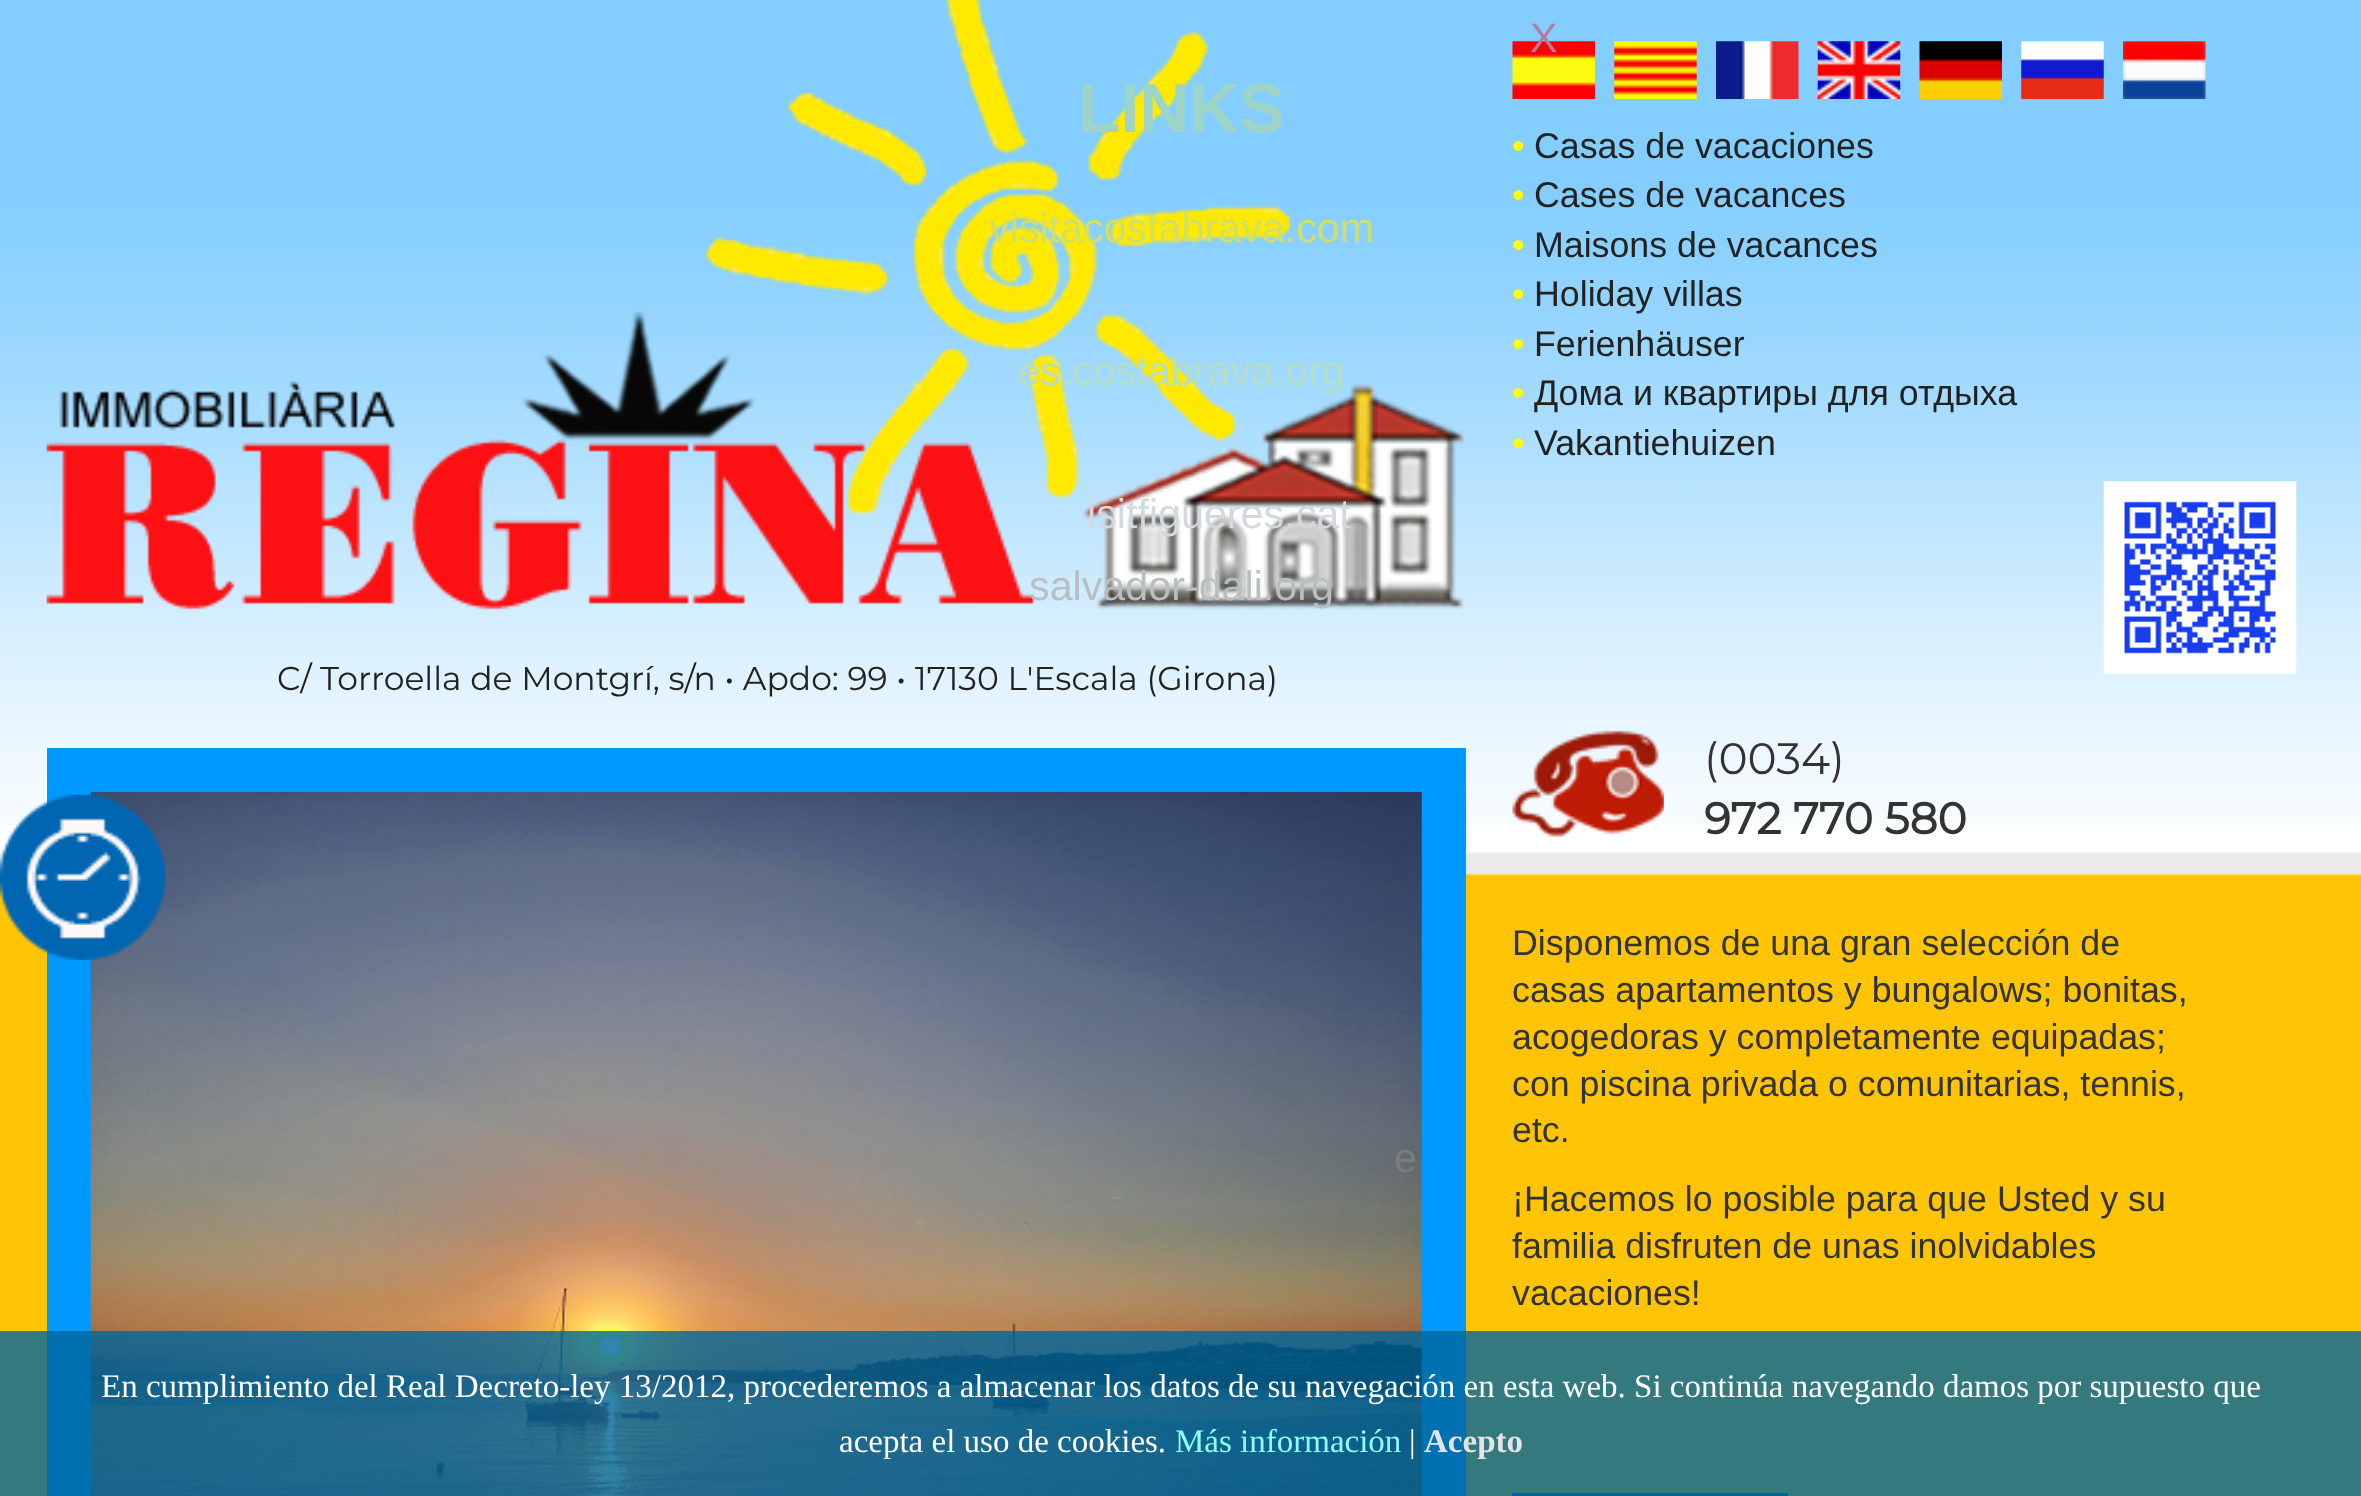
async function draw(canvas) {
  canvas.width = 2361
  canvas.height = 1496
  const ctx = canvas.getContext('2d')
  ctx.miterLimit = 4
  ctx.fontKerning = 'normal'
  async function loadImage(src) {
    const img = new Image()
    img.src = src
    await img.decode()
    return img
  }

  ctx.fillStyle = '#fff'
  ctx.fillRect(0, 0, 2361, 1496)
  ctx.drawImage(await loadImage('image1.png'), 0, 0, 2361, 1496)
  ctx.fillStyle = '#09f'
  ctx.fillRect(47, 748, 1419, 748)
  ctx.drawImage(await loadImage('image12.png'), 90, 792, 1332, 704)
  ctx.drawImage(await loadImage('image0.png'), 0, 794, 165, 166)
  ctx.drawImage(await loadImage('image2.png'), 1512, 41, 83, 58)
  ctx.font = '41.25px Liberation Sans'
  ctx.fillStyle = '#b37d9b'
  ctx.fillText('X', 1530, 52)
  ctx.drawImage(await loadImage('image11.png'), 46, 0, 1418, 610)
  ctx.font = 'bold 69px Liberation Sans'
  ctx.fillStyle = '#9ed4c8'
  ctx.fillText('LINKS', 1078, 132)
  ctx.font = '41.25px Liberation Sans'
  ctx.fillStyle = '#d0df68'
  ctx.fillText('visitacostabrava.com', 989, 242)
  ctx.fillStyle = '#b6ddc5'
  ctx.fillText('es.costabrava.org', 1017, 385)
  ctx.fillStyle = '#d3d9de'
  ctx.fillText('isitfigueres.cat', 1087, 528)
  ctx.fillStyle = '#b8bfc2'
  ctx.fillText('salvador-dali.org', 1029, 600)
  ctx.fillStyle = '#787e80'
  ctx.fillText('e', 1394, 1172)
  ctx.drawImage(await loadImage('image3.png'), 1614, 41, 83, 58)
  ctx.drawImage(await loadImage('image4.png'), 1716, 41, 83, 58)
  ctx.drawImage(await loadImage('image5.png'), 1817, 41, 84, 58)
  ctx.drawImage(await loadImage('image6.png'), 1919, 41, 83, 58)
  ctx.drawImage(await loadImage('image7.png'), 2021, 41, 83, 58)
  ctx.drawImage(await loadImage('image8.png'), 2123, 41, 83, 58)
  ctx.font = '35.75px Liberation Sans'
  ctx.fillStyle = '#ff0'
  ctx.fillText('•', 1512, 158)
  ctx.fillStyle = '#222'
  ctx.fillText('Casas de vacaciones', 1534, 158)
  ctx.fillStyle = '#ff0'
  ctx.fillText('•', 1512, 207)
  ctx.fillStyle = '#222'
  ctx.fillText('Cases de vacances', 1534, 207)
  ctx.fillStyle = '#ff0'
  ctx.fillText('•', 1512, 257)
  ctx.fillStyle = '#222'
  ctx.fillText('Maisons de vacances', 1534, 257)
  ctx.fillStyle = '#ff0'
  ctx.fillText('•', 1512, 306)
  ctx.fillStyle = '#222'
  ctx.fillText('Holiday villas', 1534, 306)
  ctx.fillStyle = '#ff0'
  ctx.fillText('•', 1512, 356)
  ctx.fillStyle = '#222'
  ctx.fillText('Ferienhäuser', 1534, 356)
  ctx.fillStyle = '#ff0'
  ctx.fillText('•', 1512, 405)
  ctx.fillStyle = '#222'
  ctx.fillText('Дома и квартиры для отдыха', 1534, 405)
  ctx.fillStyle = '#ff0'
  ctx.fillText('•', 1512, 455)
  ctx.fillStyle = '#222'
  ctx.fillText('Vakantiehuizen', 1534, 455)
  ctx.drawImage(await loadImage('image9.png'), 2103, 481, 194, 193)
  ctx.drawImage(await loadImage('image10.png'), 1512, 730, 152, 107)
  ctx.font = '100 44px Montserrat'
  ctx.fillStyle = '#333'
  ctx.fillText('(0034)', 1704, 774)
  ctx.font = 'bold 44px Montserrat'
  ctx.fillText('972 770 580', 1704, 834)
  ctx.font = '35.75px Liberation Sans'
  ctx.fillText('Disponemos de una gran selección de', 1512, 955)
  ctx.fillText('casas apartamentos y bungalows; bonitas,', 1512, 1002)
  ctx.fillText('acogedoras y completamente equipadas;', 1512, 1049)
  ctx.fillText('con piscina privada o comunitarias, tennis,', 1512, 1096)
  ctx.fillText('etc.', 1512, 1142)
  ctx.fillText('¡Hacemos lo posible para que Usted y su', 1512, 1211)
  ctx.fillText('familia disfruten de unas inolvidables', 1512, 1258)
  ctx.fillText('vacaciones!', 1512, 1305)
  ctx.fillStyle = '#135588'
  ctx.fillRect(1512, 1493, 276, 3)
  ctx.font = '100 33px Montserrat'
  ctx.fillStyle = '#222'
  ctx.fillText('C/ Torroella de Montgrí, s/n • Apdo: 99 • 17130 L\'Escala (Girona)', 277, 690)
  ctx.fillStyle = '#00669ccc'
  ctx.fillRect(0, 1331, 2361, 165)
  ctx.font = '33px Liberation Serif'
  ctx.fillStyle = '#fff'
  ctx.fillText('En cumplimiento del Real Decreto-ley 13/2012, procederemos a almacenar los datos de su navegación en esta web. Si continúa navegando damos por supuesto que', 101, 1397)
  ctx.fillText('acepta el uso de cookies.', 839, 1452)
  ctx.fillStyle = '#8cfdfb'
  ctx.fillText('Más información', 1175, 1452)
  ctx.fillStyle = '#fff'
  ctx.fillText('|', 1409, 1452)
  ctx.font = 'bold 33px Liberation Serif'
  ctx.fillStyle = '#e4e4e4'
  ctx.fillText('Acepto', 1424, 1452)
}

draw(document.querySelector('canvas'))
